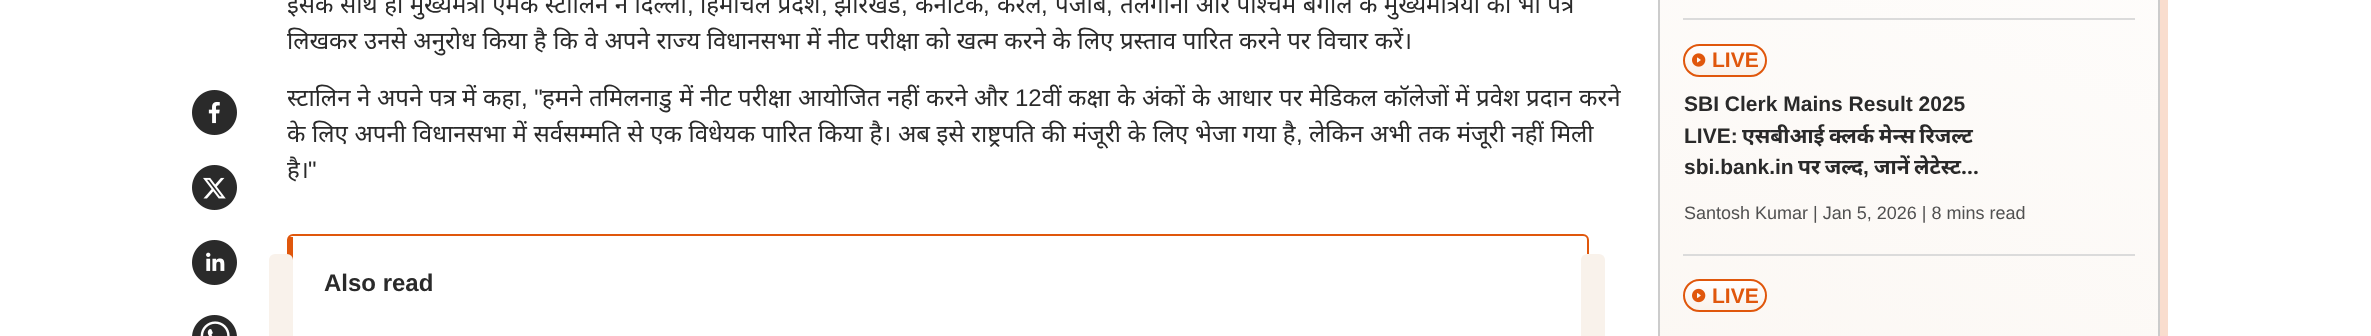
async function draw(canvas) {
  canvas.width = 2371
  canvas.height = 336
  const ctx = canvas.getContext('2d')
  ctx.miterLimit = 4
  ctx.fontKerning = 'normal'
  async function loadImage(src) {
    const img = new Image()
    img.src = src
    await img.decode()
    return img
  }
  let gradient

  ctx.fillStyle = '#fff'
  ctx.fillRect(0, 0, 2371, 336)
  ctx.drawImage(await loadImage('image0.png'), 192, 90, 45, 45)
  ctx.drawImage(await loadImage('image1.png'), 192, 165, 45, 45)
  ctx.drawImage(await loadImage('image2.png'), 192, 240, 45, 45)
  ctx.drawImage(await loadImage('image3.png'), 192, 315, 45, 21)
  ctx.wordSpacing = '0.25px'
  ctx.font = '24px Noto Sans'
  ctx.fillStyle = '#2a2a2a'
  ctx.fillText('इसके साथ ही मुख्यमंत्री एमके स्टालिन ने दिल्ली', 287, 13)
  ctx.wordSpacing = '0px'
  ctx.font = '24px Liberation Sans'
  ctx.fillText(',', 687, 13)
  ctx.wordSpacing = '0.25px'
  ctx.font = '24px Noto Sans'
  ctx.fillText('हिमाचल प्रदेश', 700, 13)
  ctx.wordSpacing = '0px'
  ctx.font = '24px Liberation Sans'
  ctx.fillText(',', 821, 13)
  ctx.font = '24px Noto Sans'
  ctx.fillText('झारखंड', 834, 13)
  ctx.font = '24px Liberation Sans'
  ctx.fillText(',', 901, 13)
  ctx.font = '24px Noto Sans'
  ctx.fillText('कर्नाटक', 915, 13)
  ctx.font = '24px Liberation Sans'
  ctx.fillText(',', 983, 13)
  ctx.font = '24px Noto Sans'
  ctx.fillText('केरल', 997, 13)
  ctx.font = '24px Liberation Sans'
  ctx.fillText(',', 1041, 13)
  ctx.font = '24px Noto Sans'
  ctx.fillText('पंजाब', 1055, 13)
  ctx.font = '24px Liberation Sans'
  ctx.fillText(',', 1106, 13)
  ctx.wordSpacing = '0.25px'
  ctx.font = '24px Noto Sans'
  ctx.fillText('तेलंगाना और पश्चिम बंगाल के मुख्यमंत्रियों को भी पत्र', 1120, 13)
  ctx.wordSpacing = '0.4px'
  ctx.fillText('लिखकर उनसे अनुरोध किया है कि वे अपने राज्य विधानसभा में नीट परीक्षा को खत्म करने के लिए प्रस्ताव पारित करने पर विचार करें।', 287, 49)
  ctx.wordSpacing = '0px'
  ctx.fillText('स्टालिन', 287, 106)
  ctx.fillText('ने', 357, 106)
  ctx.fillText('अपने', 377, 106)
  ctx.fillText('पत्र', 429, 106)
  ctx.fillText('में', 462, 106)
  ctx.fillText('कहा', 483, 106)
  ctx.font = '24px Liberation Sans'
  ctx.fillText(', "', 521, 106)
  ctx.font = '24px Noto Sans'
  ctx.fillText('हमने', 542, 106)
  ctx.fillText('तमिलनाडु', 589, 106)
  ctx.fillText('में', 679, 106)
  ctx.fillText('नीट', 700, 106)
  ctx.fillText('परीक्षा', 738, 106)
  ctx.fillText('आयोजित', 798, 106)
  ctx.fillText('नहीं', 887, 106)
  ctx.fillText('करने', 926, 106)
  ctx.fillText('और', 974, 106)
  ctx.font = '24px Liberation Sans'
  ctx.fillText('12', 1015, 106)
  ctx.font = '24px Noto Sans'
  ctx.fillText('वीं', 1042, 106)
  ctx.fillText('कक्षा', 1068, 106)
  ctx.fillText('के', 1117, 106)
  ctx.fillText('अंकों', 1142, 106)
  ctx.fillText('के', 1192, 106)
  ctx.fillText('आधार', 1217, 106)
  ctx.fillText('पर', 1279, 106)
  ctx.fillText('मेडिकल', 1309, 106)
  ctx.fillText('कॉलेजों', 1384, 106)
  ctx.fillText('में', 1455, 106)
  ctx.fillText('प्रवेश', 1476, 106)
  ctx.fillText('प्रदान', 1526, 106)
  ctx.fillText('करने', 1579, 106)
  ctx.wordSpacing = '0.4px'
  ctx.fillText('के लिए अपनी विधानसभा में सर्वसम्मति से एक विधेयक पारित किया है। अब इसे राष्ट्रपति की मंजूरी के लिए भेजा गया है', 287, 142)
  ctx.wordSpacing = '0px'
  ctx.font = '24px Liberation Sans'
  ctx.fillText(',', 1296, 142)
  ctx.wordSpacing = '0.4px'
  ctx.font = '24px Noto Sans'
  ctx.fillText('लेकिन अभी तक मंजूरी नहीं मिली', 1309, 142)
  ctx.wordSpacing = '0px'
  ctx.fillText('है।', 287, 178)
  ctx.font = '24px Liberation Sans'
  ctx.fillText('"', 308, 178)
  ctx.beginPath()
  ctx.roundRect(288, 235, 1300, 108, 5)
  ctx.strokeStyle = '#e0570c'
  ctx.lineWidth = 2
  ctx.stroke()
  ctx.fillStyle = '#e0570c'
  ctx.fillRect(289, 237, 4, 23)
  ctx.fillStyle = '#f9f2eb'
  ctx.beginPath()
  ctx.roundRect(269, 254, 24, 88, 6)
  ctx.fill()
  ctx.font = 'bold 24px Liberation Sans'
  ctx.fillStyle = '#2a2a2a'
  ctx.fillText('Also read', 324, 291)
  ctx.fillStyle = '#f9f2eb'
  ctx.beginPath()
  ctx.roundRect(1581, 254, 24, 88, 6)
  ctx.fill()
  ctx.fillStyle = '#f9ddce'
  ctx.beginPath()
  ctx.moveTo(1665, 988)
  ctx.lineTo(1665, 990)
  ctx.bezierCurveTo(1665, 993, 1668, 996, 1671, 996)
  ctx.lineTo(2162, 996)
  ctx.bezierCurveTo(2165, 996, 2168, 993, 2168, 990)
  ctx.lineTo(2168, -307)
  ctx.bezierCurveTo(2168, -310, 2165, -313, 2162, -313)
  ctx.lineTo(2160, -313)
  ctx.lineTo(2160, 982)
  ctx.bezierCurveTo(2160, 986, 2157, 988, 2154, 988)
  ctx.closePath()
  ctx.fill()
  gradient = ctx.createLinearGradient(2125, -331, 1693, 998)
  gradient.addColorStop(0, '#fff')
  gradient.addColorStop(1, '#f9f2eb')
  ctx.fillStyle = gradient
  ctx.fillRect(1660, 0, 498, 336)
  ctx.strokeStyle = '#ccc'
  ctx.strokeRect(1659, -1, 500, 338)
  ctx.fillStyle = '#dbdbdb'
  ctx.fillRect(1683, 18, 452, 2)
  ctx.save()
  ctx.beginPath()
  ctx.roundRect(1683, 44, 84, 33, 16.5)
  ctx.clip()
  gradient = ctx.createLinearGradient(1725, 45, 1725, 75)
  gradient.addColorStop(0, '#fff')
  gradient.addColorStop(1, '#f9f2eb')
  ctx.fillStyle = gradient
  ctx.fillRect(1683, 45, 84, 30)
  ctx.restore()
  ctx.beginPath()
  ctx.roundRect(1684, 45, 82, 31, 15.5)
  ctx.strokeStyle = '#e0570c'
  ctx.stroke()
  ctx.drawImage(await loadImage('image4.png'), 1692, 53, 14, 14)
  ctx.font = 'bold 21px Liberation Sans'
  ctx.fillStyle = '#e0570c'
  ctx.fillText('LIVE', 1712, 67)
  ctx.fillStyle = '#2a2a2a'
  ctx.fillText('SBI Clerk Mains Result 2025', 1684, 111)
  ctx.fillText('LIVE:', 1684, 143)
  ctx.wordSpacing = '-1px'
  ctx.font = 'bold 21px Noto Sans'
  ctx.fillText('एसबीआई क्लर्क मेन्स रिजल्ट', 1742, 143)
  ctx.wordSpacing = '0px'
  ctx.font = 'bold 21px Liberation Sans'
  ctx.fillText('sbi.bank.in', 1684, 174)
  ctx.wordSpacing = '-1px'
  ctx.font = 'bold 21px Noto Sans'
  ctx.fillText('पर जल्द', 1798, 174)
  ctx.wordSpacing = '0px'
  ctx.font = 'bold 21px Liberation Sans'
  ctx.fillText(',', 1863, 174)
  ctx.wordSpacing = '-1px'
  ctx.font = 'bold 21px Noto Sans'
  ctx.fillText('जानें लेटेस्ट…', 1874, 174)
  ctx.wordSpacing = '0px'
  ctx.font = '18px Liberation Sans'
  ctx.fillStyle = '#515151'
  ctx.fillText('Santosh Kumar | Jan 5, 2026 | 8 mins read', 1684, 219)
  ctx.fillStyle = '#dbdbdb'
  ctx.fillRect(1683, 254, 452, 2)
  ctx.save()
  ctx.beginPath()
  ctx.roundRect(1683, 279, 84, 33, 16.5)
  ctx.clip()
  gradient = ctx.createLinearGradient(1725, 281, 1725, 311)
  gradient.addColorStop(0, '#fff')
  gradient.addColorStop(1, '#f9f2eb')
  ctx.fillStyle = gradient
  ctx.fillRect(1683, 281, 84, 30)
  ctx.restore()
  ctx.beginPath()
  ctx.roundRect(1684, 280, 82, 31, 15.5)
  ctx.stroke()
  ctx.drawImage(await loadImage('image5.png'), 1692, 288, 14, 15)
  ctx.font = 'bold 21px Liberation Sans'
  ctx.fillStyle = '#e0570c'
  ctx.fillText('LIVE', 1712, 303)
}

draw(document.querySelector('canvas'))
